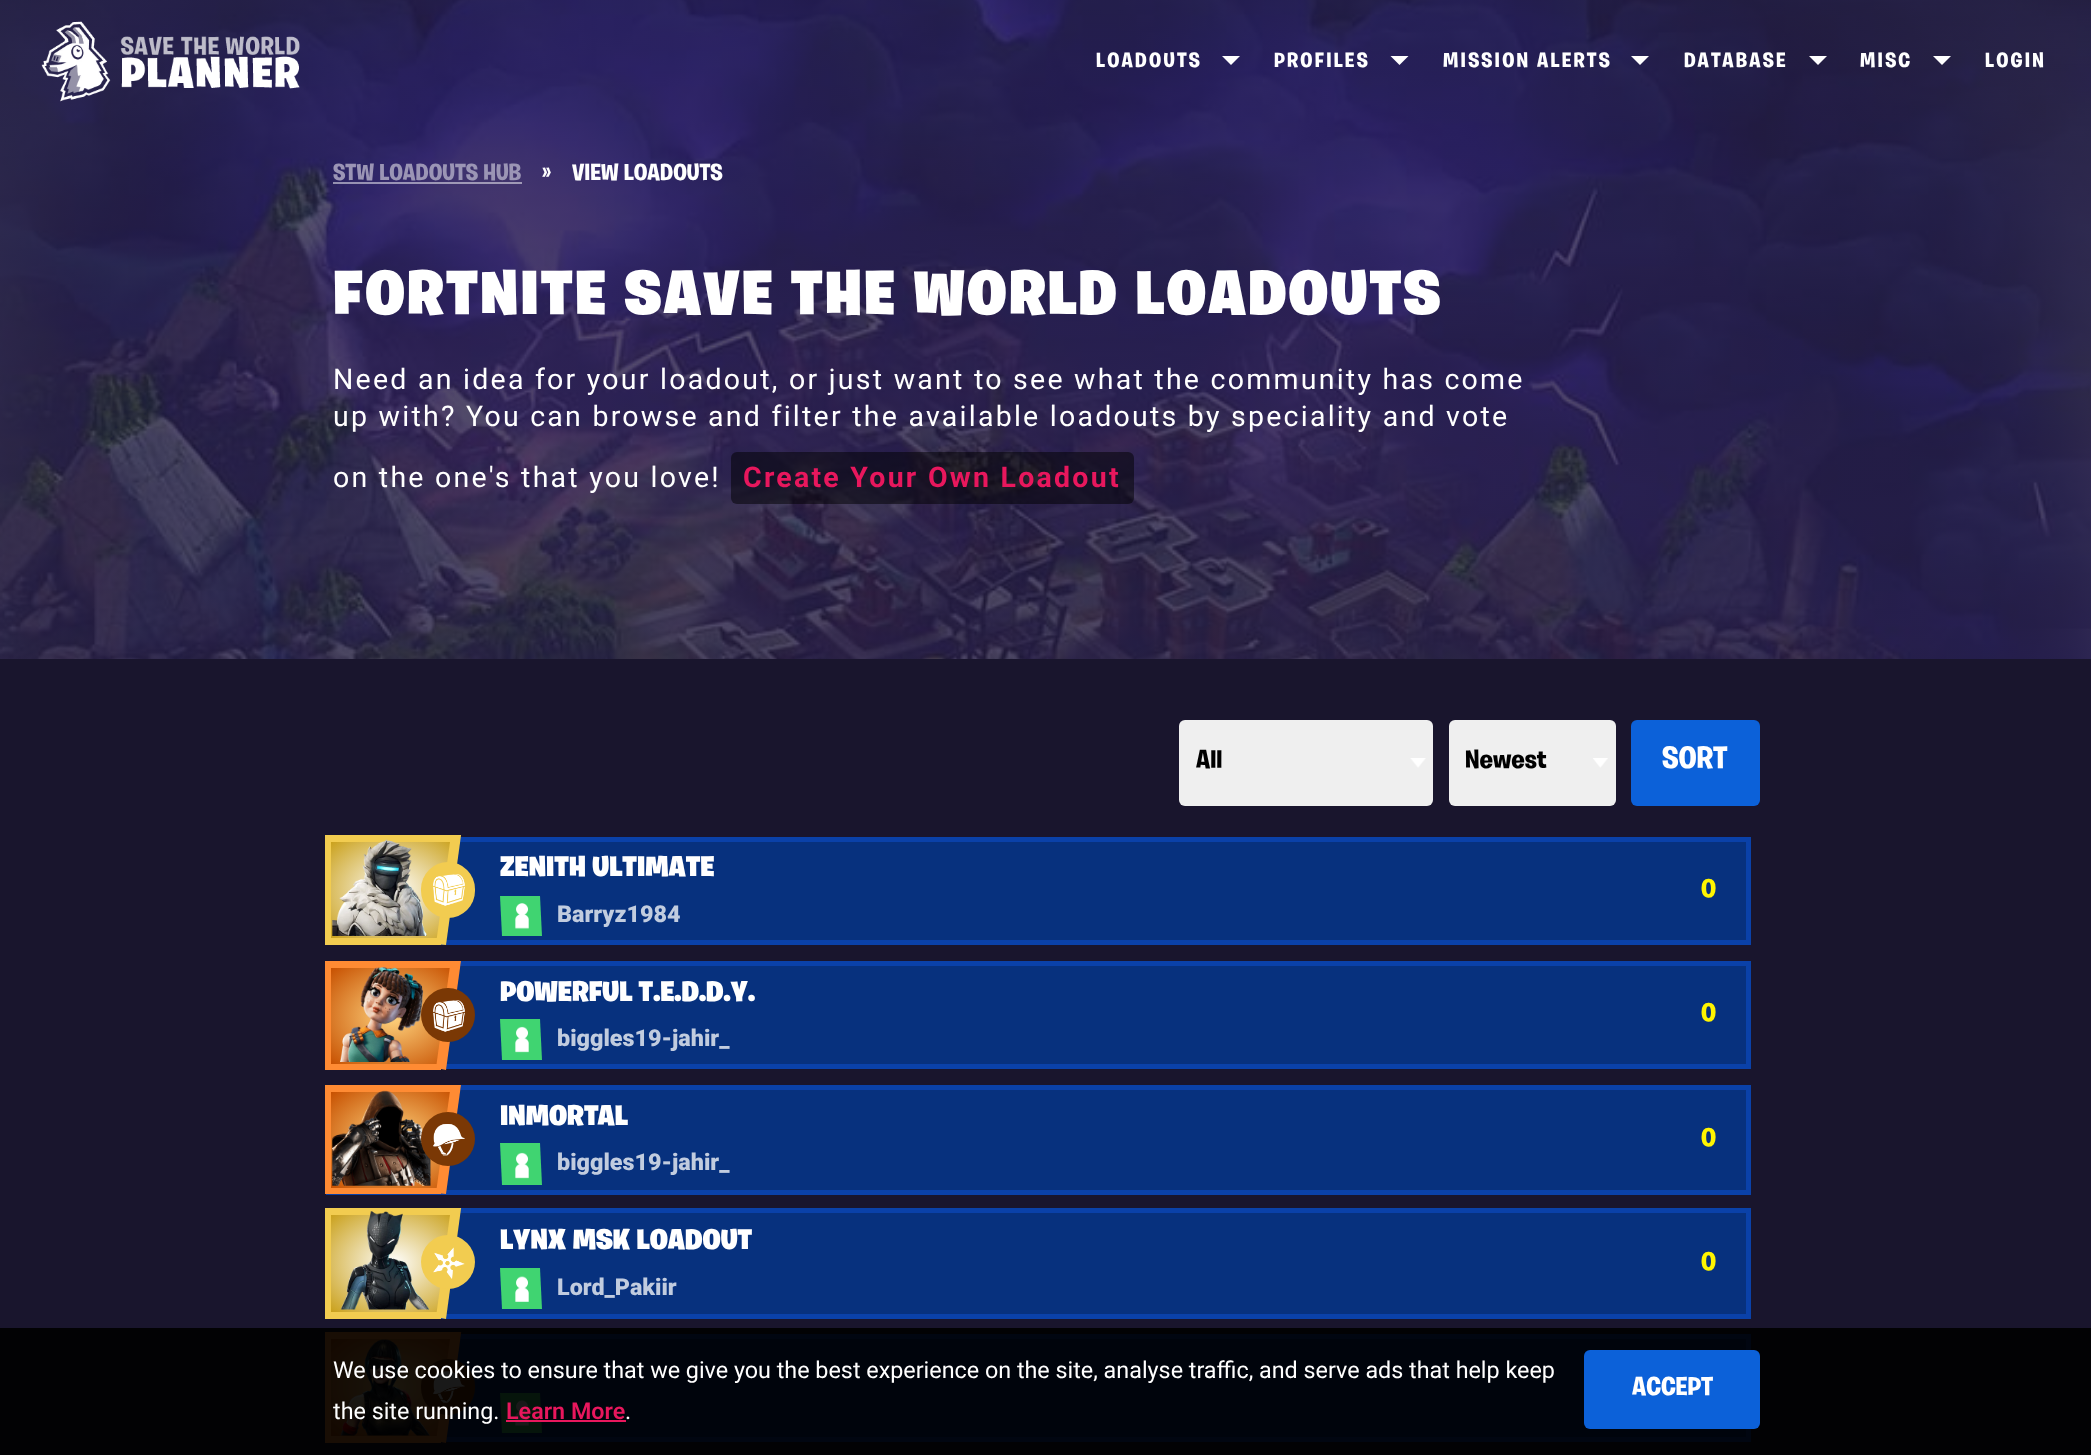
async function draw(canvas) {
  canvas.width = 2091
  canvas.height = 1455
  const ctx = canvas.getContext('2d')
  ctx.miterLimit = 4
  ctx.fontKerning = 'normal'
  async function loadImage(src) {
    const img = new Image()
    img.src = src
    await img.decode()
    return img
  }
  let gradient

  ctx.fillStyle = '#fff'
  ctx.fillRect(0, 0, 2091, 1455)
  ctx.drawImage(await loadImage('image1.png'), 0, 0, 2091, 629)
  ctx.drawImage(await loadImage('image2.png'), 0, 0, 2091, 659)
  gradient = ctx.createLinearGradient(1046, -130, 1046, 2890)
  gradient.addColorStop(0, '#241e43bf')
  gradient.addColorStop(0.95, '#241e43')
  ctx.fillStyle = gradient
  ctx.fillRect(0, 0, 2091, 659)
  ctx.drawImage(await loadImage('image0.png'), 41, 21, 259, 81)
  ctx.letterSpacing = '2.25px'
  ctx.font = 'bold 20.75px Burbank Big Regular'
  ctx.fillStyle = '#fff'
  ctx.fillText('LOADOUTS', 1096, 67)
  ctx.beginPath()
  ctx.moveTo(1222, 56)
  ctx.lineTo(1240, 56)
  ctx.lineTo(1231, 65)
  ctx.closePath()
  ctx.fill()
  ctx.fillText('PROFILES', 1274, 67)
  ctx.beginPath()
  ctx.moveTo(1390.5, 56)
  ctx.lineTo(1408.5, 56)
  ctx.lineTo(1399.5, 65)
  ctx.closePath()
  ctx.fill()
  ctx.fillText('MISSION ALERTS', 1443, 67)
  ctx.beginPath()
  ctx.moveTo(1631, 56)
  ctx.lineTo(1649, 56)
  ctx.lineTo(1640, 65)
  ctx.closePath()
  ctx.fill()
  ctx.fillText('DATABASE', 1684, 67)
  ctx.beginPath()
  ctx.moveTo(1809, 56)
  ctx.lineTo(1827, 56)
  ctx.lineTo(1818, 65)
  ctx.closePath()
  ctx.fill()
  ctx.fillText('MISC', 1860, 67)
  ctx.beginPath()
  ctx.moveTo(1933, 56)
  ctx.lineTo(1951, 56)
  ctx.lineTo(1942, 65)
  ctx.closePath()
  ctx.fill()
  ctx.fillText('LOGIN', 1985, 67)
  ctx.letterSpacing = '0px'
  ctx.font = 'bold 23.33px Burbank Big Regular'
  ctx.fillStyle = '#9b95b5'
  ctx.fillText('STW LOADOUTS HUB', 333, 180)
  ctx.fillStyle = '#ffffff80'
  ctx.fillRect(333, 182, 189, 2)
  ctx.fillStyle = '#fff'
  ctx.fillText('»', 542, 180)
  ctx.fillText('VIEW LOADOUTS', 572, 180)
  ctx.letterSpacing = '2.25px'
  ctx.font = '900 62.25px Burbank Big Regular'
  ctx.fillText('FORTNITE SAVE THE WORLD LOADOUTS', 333, 314)
  ctx.font = '28.5px Roboto'
  ctx.fillText('Need an idea for your loadout, or just want to see what the community has come', 333, 389)
  ctx.fillText('up with? You can browse and filter the available loadouts by speciality and vote', 333, 426)
  ctx.fillText('on the one\'s that you love!', 333, 487)
  ctx.fillStyle = '#00000080'
  ctx.beginPath()
  ctx.roundRect(731, 452, 403, 52, 6)
  ctx.fill()
  ctx.font = 'bold 28.5px Roboto'
  ctx.fillStyle = '#e8175d'
  ctx.fillText('Create Your Own Loadout', 743, 487)
  ctx.fillStyle = '#19152d'
  ctx.fillRect(0, 659, 2091, 796)
  ctx.fillStyle = '#efefef'
  ctx.beginPath()
  ctx.roundRect(1179, 720, 254, 86, 6)
  ctx.fill()
  ctx.drawImage(await loadImage('image3.png'), 1410, 758, 16, 10)
  ctx.letterSpacing = '0px'
  ctx.font = 'bold 26px Burbank Big Regular'
  ctx.fillStyle = '#000'
  ctx.fillText('All', 1196, 768)
  ctx.fillStyle = '#efefef'
  ctx.beginPath()
  ctx.roundRect(1449, 720, 167, 86, 6)
  ctx.fill()
  ctx.drawImage(await loadImage('image4.png'), 1593, 758, 15, 10)
  ctx.fillStyle = '#000'
  ctx.fillText('Newest', 1465, 768)
  ctx.fillStyle = '#0c61d9'
  ctx.beginPath()
  ctx.roundRect(1631, 720, 129, 86, 6)
  ctx.fill()
  ctx.font = 'bold 31px Burbank Big Regular'
  ctx.fillStyle = '#fff'
  ctx.fillText('SORT', 1662, 768)
  ctx.fillStyle = '#07317e'
  ctx.fillRect(446, 842, 1300, 98)
  ctx.strokeStyle = '#0a41a9'
  ctx.lineWidth = 5
  ctx.strokeRect(328.5, 839.5, 1420, 103)
  gradient = ctx.createRadialGradient(393, 1151.76, 0, 393, 1151.76, 88)
  gradient.addColorStop(0, '#fff')
  gradient.addColorStop(1, '#caa11c')
  ctx.fillStyle = gradient
  ctx.beginPath()
  ctx.moveTo(331, 842)
  ctx.lineTo(451, 842)
  ctx.lineTo(441, 938)
  ctx.lineTo(331, 938)
  ctx.closePath()
  ctx.save()
  ctx.clip()
  ctx.scale(1, 68 / 88)
  ctx.fillRect(0, 0, 2091, 1883)
  ctx.restore()
  ctx.fillStyle = '#f2cc50'
  ctx.fillRect(325, 835, 126, 7)
  ctx.fillRect(325, 938, 116, 7)
  ctx.fillRect(325, 835, 6, 110)
  ctx.drawImage(await loadImage('image5.png'), 332, 839, 95, 97)
  ctx.save()
  ctx.beginPath()
  ctx.rect(421, 835, 54, 115)
  ctx.clip()
  ctx.beginPath()
  ctx.moveTo(453, 820)
  ctx.lineTo(463, 821)
  ctx.lineTo(446, 945)
  ctx.lineTo(436, 944)
  ctx.closePath()
  ctx.fill()
  ctx.restore()
  ctx.beginPath()
  ctx.roundRect(421, 862, 54, 56, 27)
  ctx.fill()
  ctx.drawImage(await loadImage('image6.png'), 433, 874, 32, 32)
  ctx.font = '900 28.5px Burbank Big Regular'
  ctx.fillStyle = '#fff'
  ctx.fillText('ZENITH ULTIMATE', 500, 876)
  ctx.fillStyle = '#40d471'
  ctx.beginPath()
  ctx.moveTo(502, 936)
  ctx.lineTo(500, 896)
  ctx.lineTo(540, 896)
  ctx.lineTo(542, 936)
  ctx.closePath()
  ctx.fill()
  ctx.drawImage(await loadImage('image7.png'), 515, 903, 14, 26)
  ctx.font = '900 23.33px Roboto'
  ctx.fillStyle = '#c1ccdf'
  ctx.fillText('Barryz1984', 557, 922)
  ctx.font = 'bold 26px Burbank Big Regular'
  ctx.fillStyle = '#fff500'
  ctx.fillText('0', 1701, 897)
  ctx.fillStyle = '#07317e'
  ctx.fillRect(446, 966, 1300, 98)
  ctx.strokeRect(328.5, 963.5, 1420, 103)
  gradient = ctx.createRadialGradient(393, 1314.82, 0, 393, 1314.82, 88)
  gradient.addColorStop(0, '#ffd580')
  gradient.addColorStop(1, '#c75000')
  ctx.fillStyle = gradient
  ctx.beginPath()
  ctx.moveTo(331, 968)
  ctx.lineTo(451, 968)
  ctx.lineTo(441, 1064)
  ctx.lineTo(331, 1064)
  ctx.closePath()
  ctx.save()
  ctx.clip()
  ctx.scale(1, 68 / 88)
  ctx.fillRect(0, 0, 2091, 1883)
  ctx.restore()
  ctx.fillStyle = '#ff8b33'
  ctx.fillRect(325, 961, 126, 7)
  ctx.fillRect(325, 1064, 116, 6)
  ctx.fillRect(325, 961, 6, 109)
  ctx.drawImage(await loadImage('image8.png'), 340, 967, 84, 95)
  ctx.save()
  ctx.beginPath()
  ctx.rect(421, 961, 54, 112)
  ctx.clip()
  ctx.beginPath()
  ctx.moveTo(453, 944)
  ctx.lineTo(463, 946)
  ctx.lineTo(446, 1070)
  ctx.lineTo(436, 1068)
  ctx.closePath()
  ctx.fill()
  ctx.restore()
  ctx.fillStyle = '#7a3805'
  ctx.beginPath()
  ctx.arc(448, 1015, 27, 0, 2 * Math.PI)
  ctx.fill()
  ctx.drawImage(await loadImage('image9.png'), 433, 1000, 32, 32)
  ctx.font = '900 28.5px Burbank Big Regular'
  ctx.fillStyle = '#fff'
  ctx.fillText('POWERFUL T.E.D.D.Y.', 500, 1001)
  ctx.fillStyle = '#40d471'
  ctx.beginPath()
  ctx.moveTo(500, 1019)
  ctx.lineTo(540, 1019)
  ctx.lineTo(542, 1060)
  ctx.lineTo(502, 1060)
  ctx.closePath()
  ctx.fill()
  ctx.drawImage(await loadImage('image10.png'), 515, 1026, 14, 27)
  ctx.font = '900 23.33px Roboto'
  ctx.fillStyle = '#c1ccdf'
  ctx.fillText('biggles19-jahir_', 557, 1046)
  ctx.font = 'bold 26px Burbank Big Regular'
  ctx.fillStyle = '#fff500'
  ctx.fillText('0', 1701, 1021)
  ctx.fillStyle = '#07317e'
  ctx.fillRect(446, 1090, 1300, 100)
  ctx.strokeRect(328.5, 1087.5, 1420, 105)
  gradient = ctx.createRadialGradient(393, 1475.29, 0, 393, 1475.29, 88)
  gradient.addColorStop(0, '#ffd580')
  gradient.addColorStop(1, '#c75000')
  ctx.fillStyle = gradient
  ctx.beginPath()
  ctx.moveTo(331, 1091)
  ctx.lineTo(451, 1091)
  ctx.lineTo(441, 1188)
  ctx.lineTo(331, 1188)
  ctx.closePath()
  ctx.save()
  ctx.clip()
  ctx.scale(1, 68 / 88)
  ctx.fillRect(0, 0, 2091, 1883)
  ctx.restore()
  ctx.fillStyle = '#ff8b33'
  ctx.fillRect(325, 1085, 126, 7)
  ctx.fillRect(325, 1188, 116, 6)
  ctx.fillRect(325, 1085, 6, 109)
  ctx.drawImage(await loadImage('image11.png'), 332, 1090, 99, 96)
  ctx.save()
  ctx.beginPath()
  ctx.rect(421, 1085, 54, 114)
  ctx.clip()
  ctx.beginPath()
  ctx.moveTo(453, 1069)
  ctx.lineTo(463, 1070)
  ctx.lineTo(446, 1194)
  ctx.lineTo(436, 1193)
  ctx.closePath()
  ctx.fill()
  ctx.restore()
  ctx.fillStyle = '#7a3805'
  ctx.beginPath()
  ctx.arc(448, 1139, 27, 0, 2 * Math.PI)
  ctx.fill()
  ctx.drawImage(await loadImage('image12.png'), 433, 1124, 32, 32)
  ctx.font = '900 28.5px Burbank Big Regular'
  ctx.fillStyle = '#fff'
  ctx.fillText('INMORTAL', 500, 1125)
  ctx.fillStyle = '#40d471'
  ctx.beginPath()
  ctx.moveTo(500, 1143)
  ctx.lineTo(502, 1185)
  ctx.lineTo(542, 1185)
  ctx.lineTo(540, 1143)
  ctx.closePath()
  ctx.fill()
  ctx.drawImage(await loadImage('image10.png'), 515, 1152, 14, 27)
  ctx.font = '900 23.33px Roboto'
  ctx.fillStyle = '#c1ccdf'
  ctx.fillText('biggles19-jahir_', 557, 1170)
  ctx.font = 'bold 26px Burbank Big Regular'
  ctx.fillStyle = '#fff500'
  ctx.fillText('0', 1701, 1146)
  ctx.fillStyle = '#07317e'
  ctx.fillRect(446, 1213, 1300, 101)
  ctx.strokeRect(328.5, 1210.5, 1420, 106)
  gradient = ctx.createRadialGradient(393, 1634.47, 0, 393, 1634.47, 88)
  gradient.addColorStop(0, '#fff')
  gradient.addColorStop(1, '#caa11c')
  ctx.fillStyle = gradient
  ctx.beginPath()
  ctx.moveTo(331, 1215)
  ctx.lineTo(451, 1215)
  ctx.lineTo(441, 1312)
  ctx.lineTo(331, 1312)
  ctx.closePath()
  ctx.save()
  ctx.clip()
  ctx.scale(1, 68 / 88)
  ctx.fillRect(0, 0, 2091, 1883)
  ctx.restore()
  ctx.fillStyle = '#f2cc50'
  ctx.fillRect(325, 1208, 126, 7)
  ctx.fillRect(325, 1312, 116, 7)
  ctx.fillRect(325, 1208, 6, 111)
  ctx.drawImage(await loadImage('image13.png'), 340, 1211, 90, 99)
  ctx.save()
  ctx.beginPath()
  ctx.rect(421, 1208, 54, 115)
  ctx.clip()
  ctx.beginPath()
  ctx.moveTo(453, 1193)
  ctx.lineTo(463, 1194)
  ctx.lineTo(446, 1319)
  ctx.lineTo(436, 1317)
  ctx.closePath()
  ctx.fill()
  ctx.restore()
  ctx.beginPath()
  ctx.arc(448, 1262, 27, 0, 2 * Math.PI)
  ctx.fill()
  ctx.drawImage(await loadImage('image14.png'), 433, 1247, 32, 32)
  ctx.font = '900 28.5px Burbank Big Regular'
  ctx.fillStyle = '#fff'
  ctx.fillText('LYNX MSK LOADOUT', 500, 1249)
  ctx.fillStyle = '#40d471'
  ctx.beginPath()
  ctx.moveTo(500, 1268)
  ctx.lineTo(502, 1309)
  ctx.lineTo(542, 1309)
  ctx.lineTo(540, 1268)
  ctx.closePath()
  ctx.fill()
  ctx.drawImage(await loadImage('image15.png'), 515, 1276, 14, 26)
  ctx.font = '900 23.33px Roboto'
  ctx.fillStyle = '#c1ccdf'
  ctx.fillText('Lord_Pakiir', 557, 1295)
  ctx.font = 'bold 26px Burbank Big Regular'
  ctx.fillStyle = '#fff500'
  ctx.fillText('0', 1701, 1270)
  ctx.fillStyle = '#07317e'
  ctx.fillRect(446, 1339, 1300, 98)
  ctx.strokeRect(328.5, 1336.5, 1420, 103)
  gradient = ctx.createRadialGradient(393, 1794.94, 0, 393, 1794.94, 88)
  gradient.addColorStop(0, '#ffd580')
  gradient.addColorStop(1, '#c75000')
  ctx.fillStyle = gradient
  ctx.beginPath()
  ctx.moveTo(331, 1339)
  ctx.lineTo(451, 1339)
  ctx.lineTo(441, 1436)
  ctx.lineTo(331, 1436)
  ctx.closePath()
  ctx.save()
  ctx.clip()
  ctx.scale(1, 68 / 88)
  ctx.fillRect(0, 0, 2091, 1883)
  ctx.restore()
  ctx.fillStyle = '#ff8b33'
  ctx.fillRect(325, 1332, 126, 7)
  ctx.fillRect(325, 1436, 116, 7)
  ctx.fillRect(325, 1332, 6, 110)
  ctx.drawImage(await loadImage('image16.png'), 340, 1339, 90, 97)
  ctx.save()
  ctx.beginPath()
  ctx.rect(421, 1332, 54, 115)
  ctx.clip()
  ctx.beginPath()
  ctx.moveTo(453, 1317)
  ctx.lineTo(463, 1319)
  ctx.lineTo(446, 1443)
  ctx.lineTo(436, 1441)
  ctx.closePath()
  ctx.fill()
  ctx.restore()
  ctx.fillStyle = '#7a3805'
  ctx.beginPath()
  ctx.roundRect(421, 1359, 54, 56, 27)
  ctx.fill()
  ctx.drawImage(await loadImage('image17.png'), 433, 1371, 32, 32)
  ctx.fillStyle = '#40d471'
  ctx.beginPath()
  ctx.moveTo(502, 1433)
  ctx.lineTo(500, 1393)
  ctx.lineTo(540, 1393)
  ctx.lineTo(542, 1433)
  ctx.closePath()
  ctx.fill()
  ctx.drawImage(await loadImage('image18.png'), 515, 1400, 14, 26)
  ctx.fillStyle = '#000000e6'
  ctx.fillRect(0, 1328, 2091, 127)
  ctx.font = '23.33px Roboto'
  ctx.fillStyle = '#fff'
  ctx.fillText('We use cookies to ensure that we give you the best experience on the site, analyse traffic, and serve ads that help keep', 333, 1378)
  ctx.fillStyle = '#0c61d9'
  ctx.beginPath()
  ctx.roundRect(1584, 1350, 176, 79, 6)
  ctx.fill()
  ctx.font = 'bold 26px Burbank Big Regular'
  ctx.fillStyle = '#fff'
  ctx.fillText('ACCEPT', 1632, 1395)
  ctx.font = '23.33px Roboto'
  ctx.fillText('the site running.', 333, 1419)
  ctx.font = '600 23.33px Roboto'
  ctx.fillStyle = '#e8175d'
  ctx.fillText('Learn More', 506, 1419)
  ctx.fillRect(506, 1420, 120, 2)
  ctx.font = '23.33px Roboto'
  ctx.fillStyle = '#fff'
  ctx.fillText('.', 625, 1419)
}

draw(document.querySelector('canvas'))
